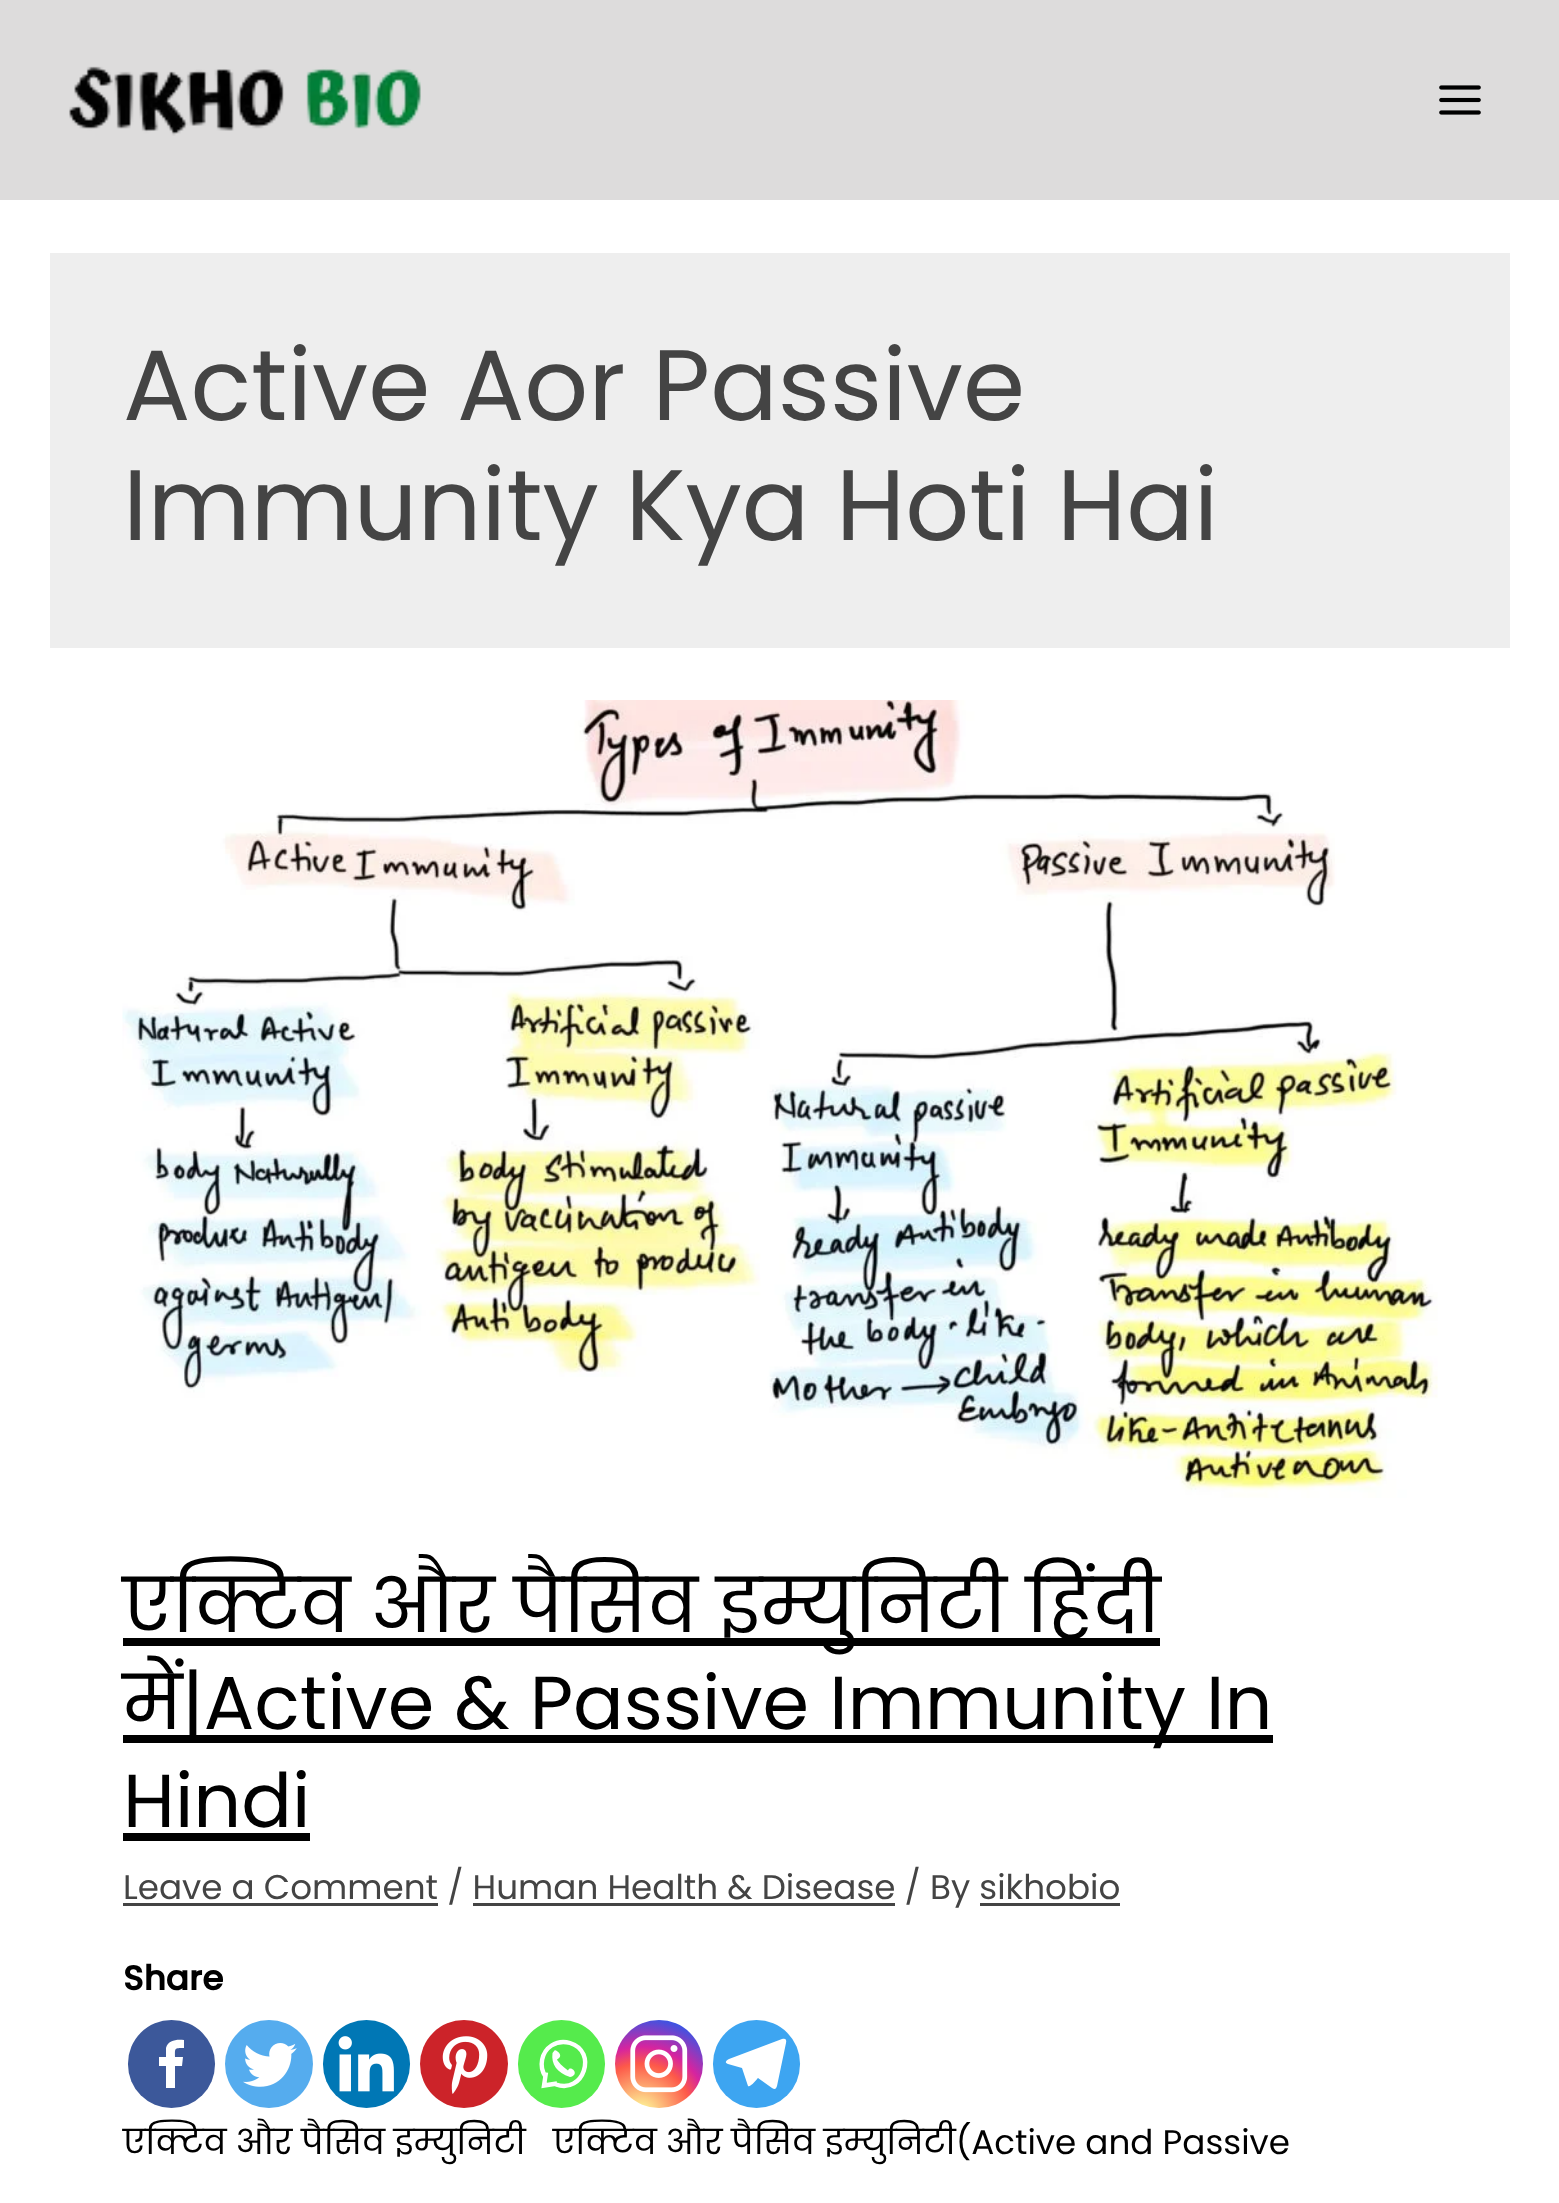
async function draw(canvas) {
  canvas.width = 1559
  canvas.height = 2203
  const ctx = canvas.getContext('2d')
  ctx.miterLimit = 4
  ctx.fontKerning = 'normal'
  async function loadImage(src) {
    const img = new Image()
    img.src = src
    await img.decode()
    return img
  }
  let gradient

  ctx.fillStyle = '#fff'
  ctx.fillRect(0, 0, 1559, 2203)
  ctx.fillStyle = '#dddcdc'
  ctx.fillRect(0, 0, 1559, 200)
  ctx.drawImage(await loadImage('image0.png'), 69, 66, 352, 70)
  ctx.drawImage(await loadImage('image1.png'), 1439, 85, 42, 30)
  ctx.fillStyle = '#eee'
  ctx.fillRect(50, 253, 1460, 395)
  ctx.font = '100px Poppins'
  ctx.fillStyle = '#444'
  ctx.fillText('Active Aor Passive', 123, 420)
  ctx.fillText('Immunity Kya Hoti Hai', 123, 540)
  ctx.drawImage(await loadImage('image2.png'), 122, 700, 1316, 798)
  ctx.fillStyle = '#000'
  ctx.fillRect(123, 1638, 1037, 8)
  ctx.font = '75px Poppins'
  ctx.fillText('एक्टिव और पैसिव इम्युनिटी हिंदी', 123, 1632)
  ctx.fillRect(123, 1735, 1150, 8)
  ctx.fillText('में|Active & Passive Immunity In', 123, 1729)
  ctx.fillText('Hindi', 123, 1827)
  ctx.fillRect(123, 1833, 187, 8)
  ctx.fillStyle = '#444'
  ctx.fillRect(123, 1903, 315, 3)
  ctx.font = '34.2px Poppins'
  ctx.fillText('Leave a Comment / Human Health & Disease / By sikhobio', 123, 1899)
  ctx.fillRect(473, 1903, 422, 3)
  ctx.fillRect(980, 1903, 140, 3)
  ctx.font = 'bold 34.2px Poppins'
  ctx.fillStyle = '#000'
  ctx.fillText('Share', 123, 1990)
  ctx.fillStyle = '#3c589a'
  ctx.beginPath()
  ctx.roundRect(128, 2020, 87, 88, 43.5)
  ctx.fill()
  ctx.fillStyle = '#fff'
  ctx.beginPath()
  ctx.moveTo(175, 2088)
  ctx.lineTo(175, 2066)
  ctx.lineTo(182, 2066)
  ctx.lineTo(183, 2057)
  ctx.lineTo(175, 2057)
  ctx.bezierCurveTo(175, 2048, 174, 2048, 184, 2048)
  ctx.lineTo(184, 2040)
  ctx.bezierCurveTo(177, 2039, 168, 2040, 166, 2048)
  ctx.lineTo(166, 2057)
  ctx.lineTo(159, 2057)
  ctx.lineTo(159, 2066)
  ctx.lineTo(166, 2066)
  ctx.lineTo(166, 2088)
  ctx.closePath()
  ctx.fill()
  ctx.fillStyle = '#55acee'
  ctx.beginPath()
  ctx.arc(269, 2064, 44, 0, 2 * Math.PI)
  ctx.fill()
  ctx.drawImage(await loadImage('image3.png'), 243, 2043, 54, 44)
  ctx.fillStyle = '#0077b5'
  ctx.beginPath()
  ctx.roundRect(323, 2020, 87, 88, 43.5)
  ctx.fill()
  ctx.drawImage(await loadImage('image4.png'), 338, 2036, 56, 56)
  ctx.fillStyle = '#cc2329'
  ctx.beginPath()
  ctx.arc(464, 2064, 44, 0, 2 * Math.PI)
  ctx.fill()
  ctx.drawImage(await loadImage('image5.png'), 442, 2036, 46, 58)
  ctx.fillStyle = '#55eb4c'
  ctx.beginPath()
  ctx.roundRect(518, 2020, 87, 88, 43.5)
  ctx.fill()
  ctx.beginPath()
  ctx.moveTo(556, 2084.5)
  ctx.bezierCurveTo(583.5, 2094.5, 598, 2051.5, 570, 2043)
  ctx.bezierCurveTo(563.5, 2041, 557, 2042, 551.5, 2045.5)
  ctx.bezierCurveTo(541.5, 2052, 538.5, 2066.5, 545.5, 2076.5)
  ctx.moveTo(546, 2072.5)
  ctx.lineTo(544, 2085.5)
  ctx.lineTo(557, 2083.5)
  ctx.strokeStyle = '#fff'
  ctx.lineWidth = 4.4
  ctx.stroke()
  ctx.fillStyle = '#fff'
  ctx.beginPath()
  ctx.moveTo(552.5, 2053)
  ctx.bezierCurveTo(551, 2064.5, 557, 2072.5, 570, 2077)
  ctx.bezierCurveTo(581, 2074.5, 570, 2064, 568, 2070.5)
  ctx.bezierCurveTo(562, 2066, 558.5, 2062.5, 557, 2059.5)
  ctx.bezierCurveTo(565.5, 2055, 554.5, 2048.5, 554.5, 2050.5)
  ctx.fill()
  gradient = ctx.createRadialGradient(641, 2114, 0, 641, 2114, 112)
  gradient.addColorStop(0, '#fdf497')
  gradient.addColorStop(0.05, '#fdf497')
  gradient.addColorStop(0.45, '#fd5949')
  gradient.addColorStop(0.6, '#d6249f')
  gradient.addColorStop(0.9, '#285aeb')
  ctx.fillStyle = gradient
  ctx.beginPath()
  ctx.arc(659, 2064, 44, 0, 2 * Math.PI)
  ctx.fill()
  ctx.drawImage(await loadImage('image6.png'), 630, 2035, 58, 58)
  ctx.fillStyle = '#3da5f1'
  ctx.beginPath()
  ctx.roundRect(713, 2020, 87, 88, 43.5)
  ctx.fill()
  ctx.fillStyle = '#fff'
  ctx.beginPath()
  ctx.moveTo(782, 2039)
  ctx.lineTo(729, 2059)
  ctx.bezierCurveTo(725, 2061, 725, 2063, 728, 2064)
  ctx.lineTo(742, 2068)
  ctx.lineTo(748, 2086)
  ctx.bezierCurveTo(750, 2088, 757, 2079, 758, 2078)
  ctx.lineTo(772, 2088)
  ctx.bezierCurveTo(775, 2090, 776, 2089, 777, 2086)
  ctx.lineTo(786, 2043)
  ctx.bezierCurveTo(787, 2039, 785, 2038, 782, 2039)
  ctx.closePath()
  ctx.fill()
  ctx.font = '34.2px Poppins'
  ctx.fillStyle = '#000'
  ctx.fillText('एक्टिव और पैसिव इम्युनिटी   एक्टिव और पैसिव इम्युनिटी(Active and Passive', 123, 2154)
}

draw(document.querySelector('canvas'))
